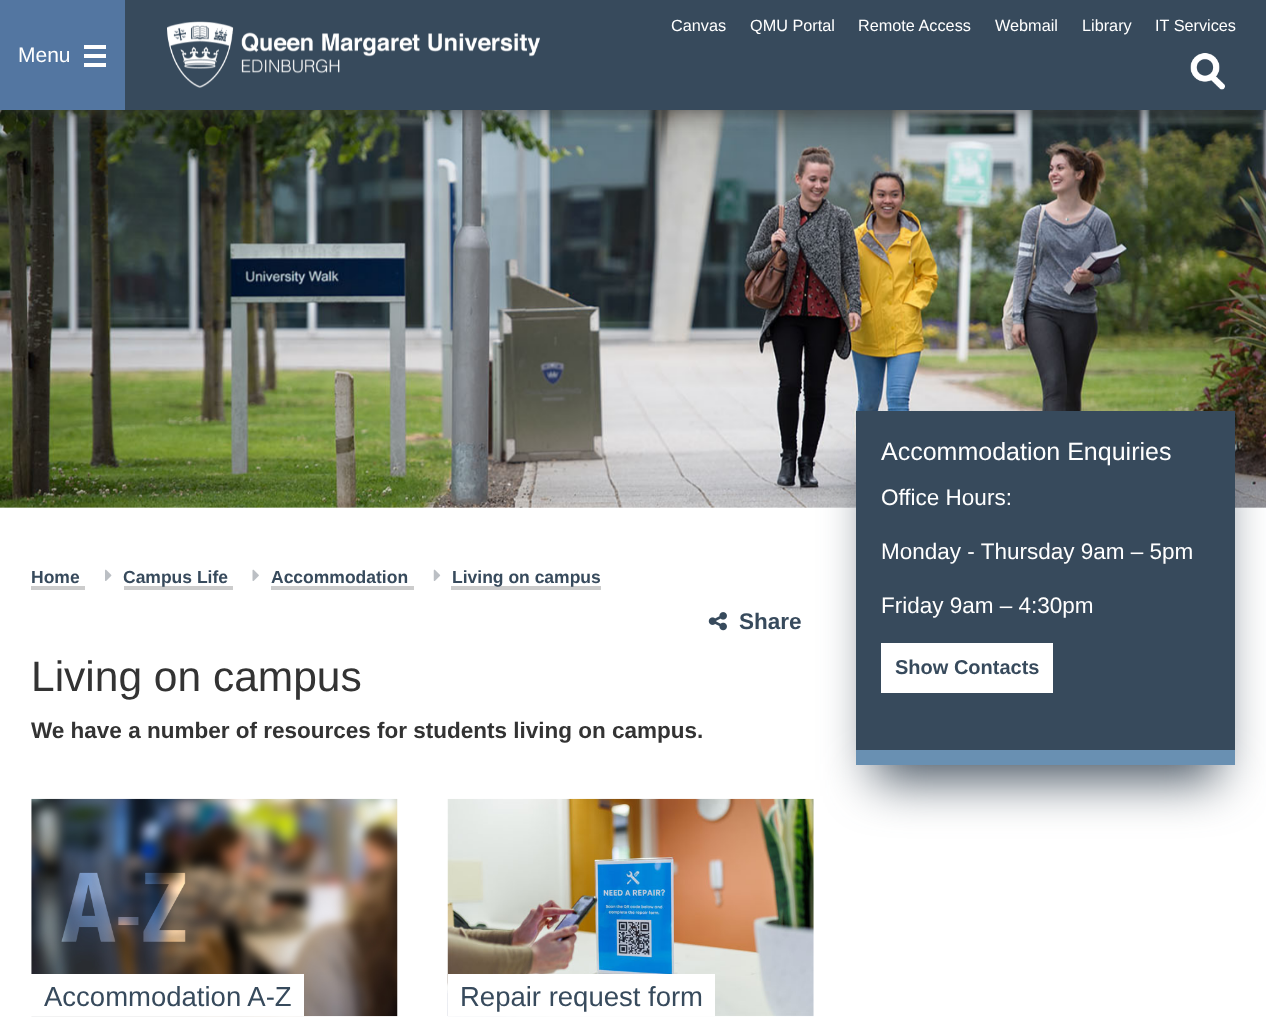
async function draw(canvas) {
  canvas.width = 1266
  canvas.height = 1027
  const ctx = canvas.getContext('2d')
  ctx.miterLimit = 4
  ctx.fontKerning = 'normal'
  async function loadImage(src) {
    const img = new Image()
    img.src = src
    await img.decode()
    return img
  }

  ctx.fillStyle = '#fff'
  ctx.fillRect(0, 0, 1266, 1027)
  ctx.drawImage(await loadImage('image2.png'), 0, 110, 1266, 398)
  ctx.fillStyle = '#4a4a4a'
  ctx.filter = 'blur(11px)'
  ctx.beginPath()
  ctx.rect(0, -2, 1266, 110)
  ctx.fill()
  ctx.filter = 'none'
  ctx.fillStyle = '#374a5c'
  ctx.fillRect(125, 0, 1141, 110)
  ctx.fillStyle = '#5376a1'
  ctx.fillRect(0, 0, 125, 110)
  ctx.font = '21px Liberation Sans'
  ctx.fillStyle = '#fff'
  ctx.fillText('Menu', 18, 62)
  ctx.fillRect(84, 45, 22, 4)
  ctx.fillRect(84, 54, 22, 4)
  ctx.fillRect(84, 63, 22, 4)
  ctx.drawImage(await loadImage('image0.png'), 167, 21, 373, 67)
  ctx.font = '16.25px Liberation Sans'
  ctx.fillText('Canvas', 671, 31)
  ctx.fillText('QMU Portal', 750, 31)
  ctx.fillText('Remote Access', 858, 31)
  ctx.fillText('Webmail', 995, 31)
  ctx.fillText('Library', 1082, 31)
  ctx.fillText('IT Services', 1155, 31)
  ctx.drawImage(await loadImage('image1.png'), 1190, 53, 35, 37)
  ctx.font = 'bold 17.5px Liberation Sans'
  ctx.fillStyle = '#374a5c'
  ctx.fillText('Home', 31, 583)
  ctx.fillStyle = '#ccc'
  ctx.fillRect(31, 586, 54, 4)
  ctx.drawImage(await loadImage('image3.png'), 105, 569, 7, 12)
  ctx.fillRect(124, 586, 109, 4)
  ctx.fillStyle = '#374a5c'
  ctx.fillText('Campus Life', 123, 583)
  ctx.drawImage(await loadImage('image4.png'), 252, 569, 7, 12)
  ctx.fillText('Accommodation', 271, 583)
  ctx.fillStyle = '#ccc'
  ctx.fillRect(271, 586, 143, 4)
  ctx.drawImage(await loadImage('image5.png'), 433, 569, 8, 12)
  ctx.fillRect(451, 586, 150, 4)
  ctx.fillStyle = '#374a5c'
  ctx.fillText('Living on campus', 452, 583)
  ctx.drawImage(await loadImage('image6.png'), 708, 612, 19, 19)
  ctx.font = 'bold 22.5px Liberation Sans'
  ctx.fillText('Share', 739, 629)
  ctx.font = '42.5px Liberation Sans'
  ctx.fillStyle = '#333'
  ctx.fillText('Living on campus', 31, 691)
  ctx.font = 'bold 22.5px Liberation Sans'
  ctx.fillText('We have a number of resources for students living on campus.', 31, 738)
  ctx.drawImage(await loadImage('image7.png'), 31, 798, 367, 219)
  ctx.fillStyle = '#fff'
  ctx.fillRect(31, 974, 13, 42)
  ctx.fillRect(44, 974, 260, 42)
  ctx.font = '27.5px Liberation Sans'
  ctx.fillStyle = '#374a5c'
  ctx.fillText('Accommodation A-Z', 44, 1006)
  ctx.drawImage(await loadImage('image8.png'), 447, 798, 367, 219)
  ctx.fillStyle = '#fff'
  ctx.fillRect(460, 974, 255, 42)
  ctx.fillStyle = '#374a5c'
  ctx.fillText('Repair request form', 460, 1006)
  ctx.fillStyle = '#fff'
  ctx.fillRect(448, 974, 12, 42)
  ctx.fillStyle = '#42505df7'
  ctx.filter = 'blur(24.5px)'
  ctx.beginPath()
  ctx.rect(874, 461, 344, 319)
  ctx.fill()
  ctx.filter = 'none'
  ctx.fillStyle = '#374a5c'
  ctx.fillRect(856, 411, 379, 339)
  ctx.fillStyle = '#6990b2'
  ctx.fillRect(856, 750, 379, 15)
  ctx.font = '25px Liberation Sans'
  ctx.fillStyle = '#fff'
  ctx.fillText('Accommodation Enquiries', 881, 460)
  ctx.font = '22.5px Liberation Sans'
  ctx.fillText('Office Hours:', 881, 505)
  ctx.fillText('Monday - Thursday 9am – 5pm', 881, 559)
  ctx.fillText('Friday 9am – 4:30pm', 881, 613)
  ctx.fillRect(881, 643, 172, 50)
  ctx.font = 'bold 20px Liberation Sans'
  ctx.fillStyle = '#374a5c'
  ctx.fillText('Show Contacts', 895, 674)
}

draw(document.querySelector('canvas'))
